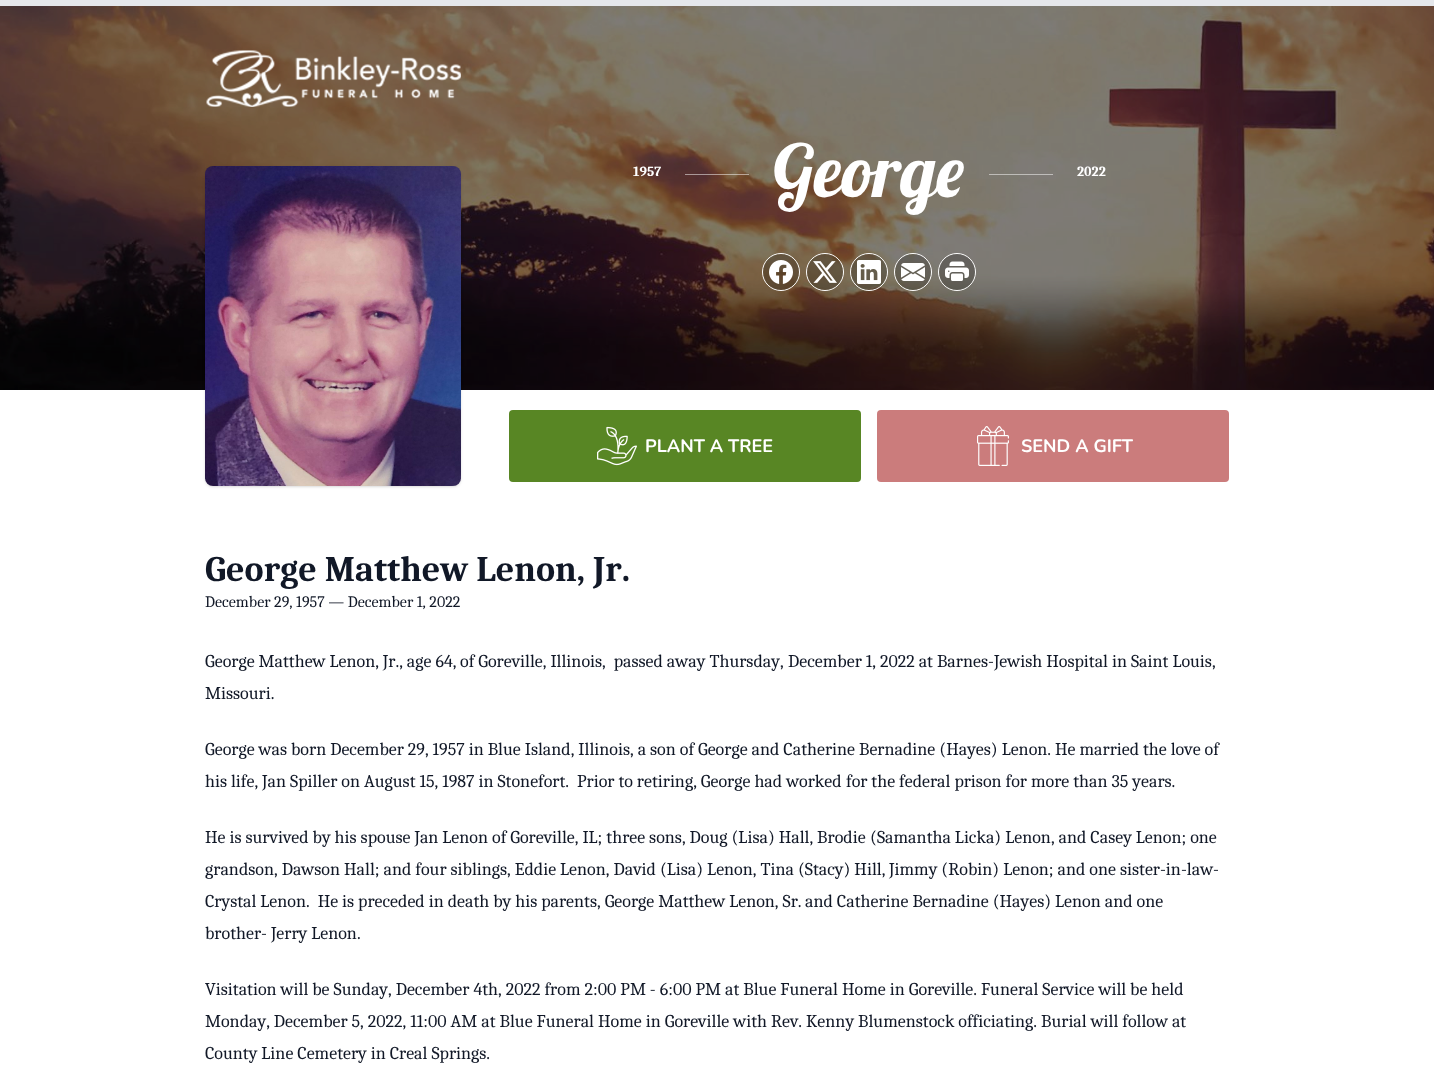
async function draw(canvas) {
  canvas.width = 1434
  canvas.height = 1088
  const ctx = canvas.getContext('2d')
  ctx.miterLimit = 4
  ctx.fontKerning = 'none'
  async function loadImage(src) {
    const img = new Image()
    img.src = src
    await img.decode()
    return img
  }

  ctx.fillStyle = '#fff'
  ctx.fillRect(0, 0, 1434, 1088)
  ctx.fillStyle = '#e5e7eb'
  ctx.fillRect(0, 0, 1434, 6)
  ctx.drawImage(await loadImage('image0.png'), 0, 6, 1434, 384)
  ctx.drawImage(await loadImage('image1.png'), 206, 50, 255, 57)
  ctx.fillStyle = '#0000001a'
  ctx.filter = 'blur(1px)'
  ctx.beginPath()
  ctx.roundRect(206, 168, 254, 318, 7)
  ctx.fill()
  ctx.filter = 'none'
  ctx.filter = 'blur(1.5px)'
  ctx.beginPath()
  ctx.roundRect(205, 167, 256, 320, 8)
  ctx.fill()
  ctx.filter = 'none'
  ctx.drawImage(await loadImage('image2.png'), 205, 166, 256, 320)
  ctx.font = 'bold 14px Caladea'
  ctx.fillStyle = '#fff'
  ctx.fillText('1957', 633, 176)
  ctx.fillStyle = '#ffffff80'
  ctx.fillRect(685, 174, 64, 1)
  ctx.font = '72px Lobster'
  ctx.fillStyle = '#fff'
  ctx.fillText('George', 773, 197)
  ctx.fillStyle = '#ffffff80'
  ctx.fillRect(989, 174, 64, 1)
  ctx.font = 'bold 14px Caladea'
  ctx.fillStyle = '#fff'
  ctx.fillText('2022', 1077, 176)
  ctx.beginPath()
  ctx.arc(781, 272, 18.5, 0, 2 * Math.PI)
  ctx.strokeStyle = '#fff'
  ctx.stroke()
  ctx.fillStyle = '#00000033'
  ctx.beginPath()
  ctx.arc(781, 272, 18, 0, 2 * Math.PI)
  ctx.fill()
  ctx.drawImage(await loadImage('image3.png'), 769, 260, 24, 24)
  ctx.beginPath()
  ctx.arc(825, 272, 18.5, 0, 2 * Math.PI)
  ctx.stroke()
  ctx.beginPath()
  ctx.arc(825, 272, 18, 0, 2 * Math.PI)
  ctx.fill()
  ctx.drawImage(await loadImage('image4.png'), 813, 261, 24, 22)
  ctx.beginPath()
  ctx.arc(869, 272, 18.5, 0, 2 * Math.PI)
  ctx.stroke()
  ctx.beginPath()
  ctx.arc(869, 272, 18, 0, 2 * Math.PI)
  ctx.fill()
  ctx.drawImage(await loadImage('image5.png'), 857, 260, 24, 24)
  ctx.beginPath()
  ctx.arc(913, 272, 18.5, 0, 2 * Math.PI)
  ctx.stroke()
  ctx.beginPath()
  ctx.arc(913, 272, 18, 0, 2 * Math.PI)
  ctx.fill()
  ctx.drawImage(await loadImage('image6.png'), 901, 263, 24, 18)
  ctx.beginPath()
  ctx.arc(957, 272, 18.5, 0, 2 * Math.PI)
  ctx.stroke()
  ctx.beginPath()
  ctx.arc(957, 272, 18, 0, 2 * Math.PI)
  ctx.fill()
  ctx.drawImage(await loadImage('image7.png'), 945, 261, 24, 20)
  ctx.fillStyle = '#588624'
  ctx.beginPath()
  ctx.roundRect(509, 410, 352, 72, 4)
  ctx.fill()
  ctx.drawImage(await loadImage('image8.png'), 597, 426, 40, 40)
  ctx.font = 'bold 18px Nunito'
  ctx.fillStyle = '#fff'
  ctx.fillText('PLANT A TREE', 645, 452)
  ctx.fillStyle = '#cb7c7c'
  ctx.beginPath()
  ctx.roundRect(877, 410, 352, 72, 4)
  ctx.fill()
  ctx.drawImage(await loadImage('image9.png'), 977, 426, 32, 40)
  ctx.fillStyle = '#fff'
  ctx.fillText('SEND A GIFT', 1021, 452)
  ctx.font = 'bold 36px Caladea'
  ctx.fillStyle = '#111827'
  ctx.fillText('George Matthew Lenon, Jr.', 205, 581)
  ctx.font = '16px Caladea'
  ctx.fillText('December 29, 1957 — December 1, 2022', 205, 607)
  ctx.font = '18px Caladea'
  ctx.fillText('George Matthew Lenon, Jr., age 64,', 205, 667)
  ctx.fillText('of Goreville, Illinois,  passed away Thursday,', 460, 667)
  ctx.fillText('December 1, 2022 at Barnes-Jewish Hospital in Saint Louis,', 788, 667)
  ctx.fillText('Missouri.', 205, 699)
  ctx.fillText('George was born December 29, 1957 in Blue Island, Illinois, a son of George and Catherine Bernadine (Hayes) Lenon.', 205, 755)
  ctx.fillText('He married the love of', 1055, 755)
  ctx.fillText('his life, Jan Spiller on August 15, 1987 in Stonefort.  Prior to retiring, George had worked', 205, 787)
  ctx.fillText('for the federal prison for more than 35 years.', 846, 787)
  ctx.fillText('He is survived by his spouse Jan Lenon of Goreville, IL; three sons, Doug (Lisa) Hall, Brodie', 205, 843)
  ctx.fillText('(Samantha Licka) Lenon, and Casey Lenon; one', 870, 843)
  ctx.fillText('grandson, Dawson Hall; and four siblings, Eddie Lenon, David (Lisa) Lenon, Tina (Stacy) Hill,', 205, 875)
  ctx.fillText('Jimmy (Robin) Lenon; and one sister-in-law-', 889, 875)
  ctx.fillText('Crystal Lenon.  He is preceded in death by his parents, George Matthew Lenon, Sr.', 205, 907)
  ctx.fillText('and Catherine Bernadine (Hayes) Lenon and one', 805, 907)
  ctx.fillText('brother- Jerry Lenon.', 205, 939)
  ctx.fillText('Visitation will be Sunday, December 4th, 2022 from 2:00 PM - 6:00 PM at Blue Funeral', 205, 995)
  ctx.fillText('Home in Goreville. Funeral Service will be held', 842, 995)
  ctx.fillText('Monday, December 5, 2022, 11:00 AM at Blue Funeral', 205, 1027)
  ctx.fillText('Home in Goreville with Rev. Kenny Blumenstock officiating.', 598, 1027)
  ctx.fillText('Burial will follow at', 1041, 1027)
  ctx.fillText('County Line Cemetery in Creal Springs.', 205, 1059)
}

draw(document.querySelector('canvas'))
